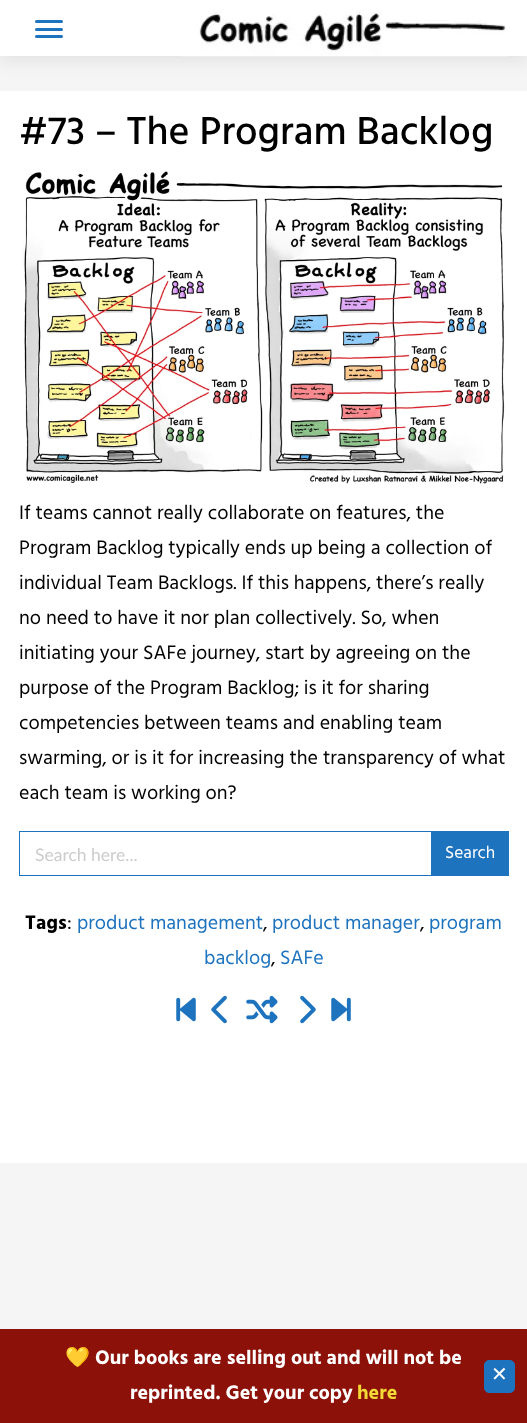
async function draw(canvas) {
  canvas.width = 527
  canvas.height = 1423
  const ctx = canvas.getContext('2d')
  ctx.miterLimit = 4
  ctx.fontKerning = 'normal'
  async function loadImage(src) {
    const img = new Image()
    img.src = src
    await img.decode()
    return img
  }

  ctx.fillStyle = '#f5f5f5'
  ctx.fillRect(0, 0, 527, 1423)
  ctx.fillStyle = '#32323214'
  ctx.filter = 'blur(7px)'
  ctx.beginPath()
  ctx.rect(0, 6, 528, 57)
  ctx.fill()
  ctx.filter = 'none'
  ctx.fillStyle = '#fff'
  ctx.fillRect(0, 0, 527, 56)
  ctx.fillStyle = '#1e73be'
  ctx.beginPath()
  ctx.roundRect(35, 20, 28, 3, 1.5)
  ctx.fill()
  ctx.beginPath()
  ctx.roundRect(35, 28, 28, 3, 1.5)
  ctx.fill()
  ctx.beginPath()
  ctx.roundRect(35, 35, 28, 3, 1.5)
  ctx.fill()
  ctx.drawImage(await loadImage('image0.png'), 182, 10, 325, 47)
  ctx.fillStyle = '#fff'
  ctx.fillRect(0, 91, 527, 1072)
  ctx.font = '500 40px Hind'
  ctx.fillStyle = '#000'
  ctx.fillText('#73 – The Program Backlog', 19, 144)
  ctx.drawImage(await loadImage('image1.png'), 22, 171, 483, 313)
  ctx.font = '20px Hind'
  ctx.fillText('If teams cannot really collaborate on features, the', 19, 519)
  ctx.fillText('Program Backlog typically ends up being a collection of', 19, 554)
  ctx.fillText('individual Team Backlogs. If this happens, there’s really', 19, 589)
  ctx.fillText('no need to have it nor plan collectively. So, when', 19, 624)
  ctx.fillText('initiating your SAFe journey, start by agreeing on the', 19, 659)
  ctx.fillText('purpose of the Program Backlog; is it for sharing', 19, 694)
  ctx.fillText('competencies between teams and enabling team', 19, 729)
  ctx.fillText('swarming, or is it for increasing the transparency of what', 19, 764)
  ctx.fillText('each team is working on?', 19, 799)
  ctx.strokeStyle = '#1e73be'
  ctx.strokeRect(19.5, 831.5, 489, 44)
  ctx.font = '17.5px Lato'
  ctx.fillStyle = '#ccc'
  ctx.fillText('Search here...', 35, 861)
  ctx.fillStyle = '#1e73be'
  ctx.fillRect(431, 832, 77, 43)
  ctx.font = '17.5px Hind'
  ctx.fillStyle = '#fff'
  ctx.fillText('Search', 445, 858)
  ctx.font = 'bold 20px Hind'
  ctx.fillStyle = '#000'
  ctx.fillText('Tags', 25, 929)
  ctx.font = '20px Hind'
  ctx.fillText(':', 67, 929)
  ctx.fillStyle = '#1e73be'
  ctx.fillText('product management', 77, 929)
  ctx.fillText('product manager', 272, 929)
  ctx.fillText('program', 429, 929)
  ctx.fillStyle = '#000'
  ctx.fillText(',', 263, 929)
  ctx.fillText(',', 420, 929)
  ctx.fillStyle = '#1e73be'
  ctx.fillText('backlog', 204, 964)
  ctx.fillStyle = '#000'
  ctx.fillText(',', 271, 964)
  ctx.fillStyle = '#1e73be'
  ctx.fillText('SAFe', 280, 964)
  ctx.drawImage(await loadImage('image2.png'), 176, 997, 20, 25)
  ctx.drawImage(await loadImage('image3.png'), 211, 995, 16, 29)
  ctx.drawImage(await loadImage('image4.png'), 246, 995, 32, 29)
  ctx.drawImage(await loadImage('image5.png'), 300, 995, 16, 29)
  ctx.drawImage(await loadImage('image6.png'), 331, 997, 20, 25)
  ctx.fillStyle = '#8c1108'
  ctx.fillRect(0, 1329, 527, 94)
  ctx.font = 'bold 20px Noto Color Emoji'
  ctx.fillStyle = '#fff'
  ctx.fillText('💛', 65, 1364)
  ctx.font = 'bold 20px Hind'
  ctx.fillText('Our books are selling out and will not be', 95, 1364)
  ctx.fillText('reprinted. Get your copy', 130, 1399)
  ctx.fillStyle = '#f2d936'
  ctx.fillText('here', 357, 1399)
  ctx.fillStyle = '#1e73be'
  ctx.beginPath()
  ctx.roundRect(484.5, 1360.5, 30, 32, 4.5)
  ctx.fill()
  ctx.stroke()
  ctx.font = '20px DejaVu Sans'
  ctx.fillStyle = '#fff'
  ctx.fillText('✕', 491, 1381)
}

draw(document.querySelector('canvas'))
